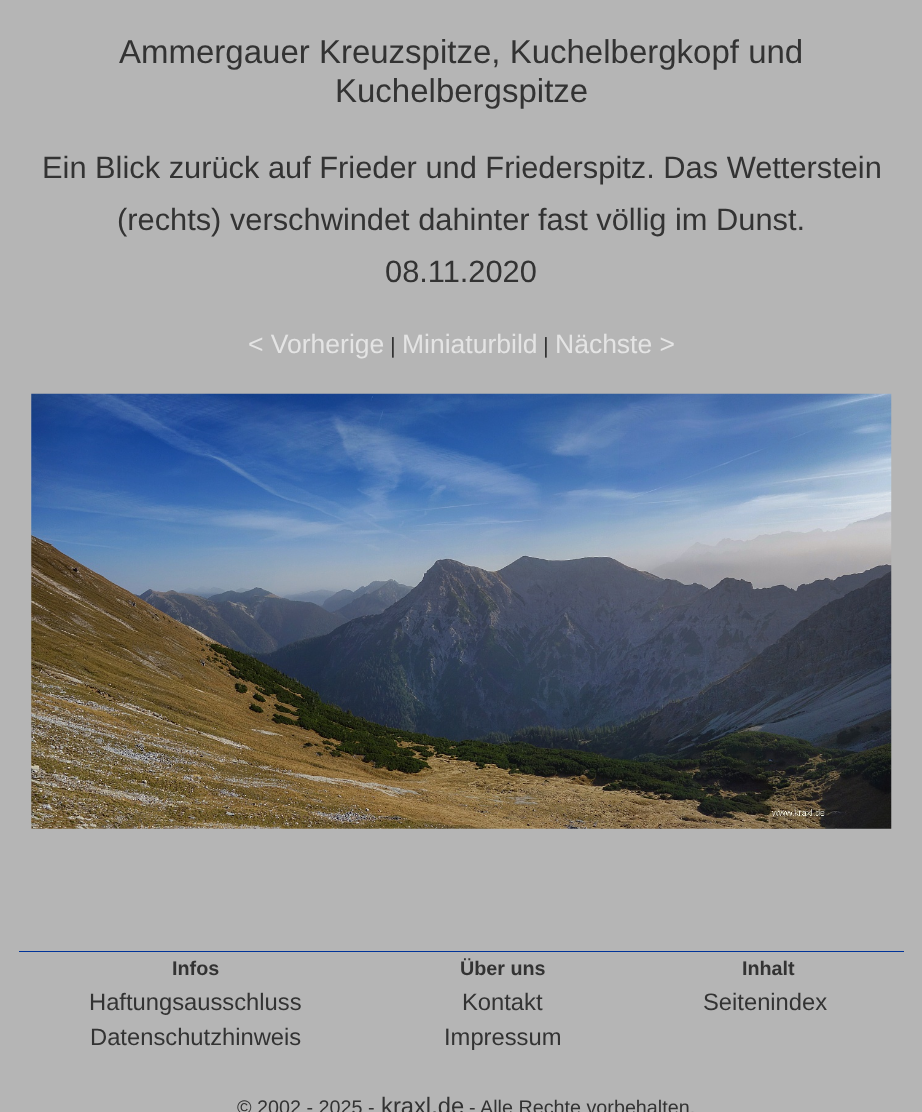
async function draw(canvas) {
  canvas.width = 922
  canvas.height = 1112
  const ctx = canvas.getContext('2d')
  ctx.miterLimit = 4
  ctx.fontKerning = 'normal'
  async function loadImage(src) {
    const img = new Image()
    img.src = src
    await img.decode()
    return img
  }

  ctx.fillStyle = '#b5b5b5'
  ctx.fillRect(0, 0, 922, 1112)
  ctx.font = '33px Liberation Sans'
  ctx.fillStyle = '#333'
  ctx.fillText('Ammergauer Kreuzspitze, Kuchelbergkopf und', 119, 63)
  ctx.fillText('Kuchelbergspitze', 335, 102)
  ctx.font = '30.8px Liberation Sans'
  ctx.fillText('Ein Blick zurück auf Frieder und Friederspitz. Das Wetterstein', 42, 178)
  ctx.fillText('(rechts) verschwindet dahinter fast völlig im Dunst.', 117, 230)
  ctx.fillText('08.11.2020', 385, 282)
  ctx.font = '26.5px Liberation Sans'
  ctx.fillStyle = '#e4e4e4'
  ctx.fillText('< Vorherige', 248, 353)
  ctx.font = '22px Liberation Sans'
  ctx.fillStyle = '#333'
  ctx.fillText('|', 390, 353)
  ctx.font = '26.5px Liberation Sans'
  ctx.fillStyle = '#e4e4e4'
  ctx.fillText('Miniaturbild', 402, 353)
  ctx.font = '22px Liberation Sans'
  ctx.fillStyle = '#333'
  ctx.fillText('|', 543, 353)
  ctx.font = '26.5px Liberation Sans'
  ctx.fillStyle = '#e4e4e4'
  ctx.fillText('Nächste >', 555, 353)
  ctx.drawImage(await loadImage('image0.png'), 31, 393, 861, 436)
  ctx.fillStyle = '#039'
  ctx.fillRect(19, 951, 885, 1)
  ctx.font = 'bold 19.75px Liberation Sans'
  ctx.fillStyle = '#333'
  ctx.fillText('Infos', 172, 975)
  ctx.font = '23.75px Liberation Sans'
  ctx.fillText('Haftungsausschluss', 89, 1010)
  ctx.fillText('Datenschutzhinweis', 90, 1045)
  ctx.font = 'bold 19.75px Liberation Sans'
  ctx.fillText('Über uns', 460, 975)
  ctx.font = '23.75px Liberation Sans'
  ctx.fillText('Kontakt', 462, 1010)
  ctx.fillText('Impressum', 444, 1045)
  ctx.font = 'bold 19.75px Liberation Sans'
  ctx.fillText('Inhalt', 742, 975)
  ctx.font = '23.75px Liberation Sans'
  ctx.fillText('Seitenindex', 703, 1010)
  ctx.font = '19.75px Liberation Sans'
  ctx.fillText('© 2002 - 2025 -', 237, 1114)
  ctx.font = '23.75px Liberation Sans'
  ctx.fillText('kraxl.de', 381, 1114)
  ctx.font = '19.75px Liberation Sans'
  ctx.fillText('- Alle Rechte vorbehalten.', 469, 1114)
}

draw(document.querySelector('canvas'))
